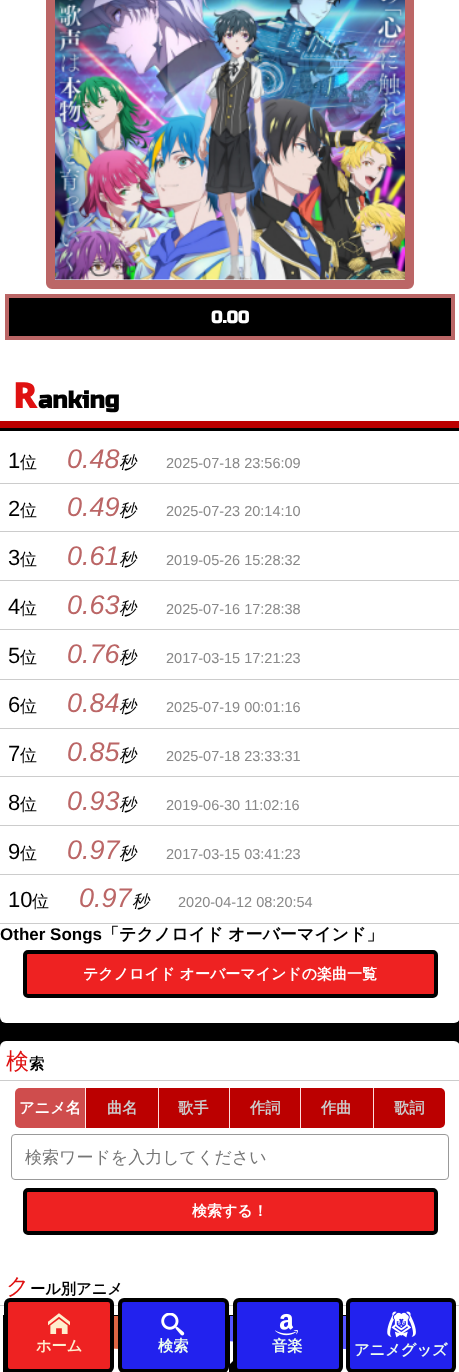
async function draw(canvas) {
  canvas.width = 459
  canvas.height = 1372
  const ctx = canvas.getContext('2d')
  ctx.miterLimit = 4
  ctx.fontKerning = 'normal'
  async function loadImage(src) {
    const img = new Image()
    img.src = src
    await img.decode()
    return img
  }

  ctx.fillStyle = '#000'
  ctx.fillRect(0, 0, 459, 1372)
  ctx.fillStyle = '#fff'
  ctx.beginPath()
  ctx.roundRect(0, -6, 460, 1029, 6)
  ctx.fill()
  ctx.beginPath()
  ctx.roundRect(50.5, -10.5, 359, 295, 1.5)
  ctx.strokeStyle = '#b66'
  ctx.lineWidth = 9
  ctx.stroke()
  ctx.drawImage(await loadImage('image0.png'), 55, 0, 350, 280)
  ctx.fillStyle = '#000'
  ctx.beginPath()
  ctx.rect(7, 296, 446, 42)
  ctx.fill()
  ctx.lineWidth = 4
  ctx.stroke()
  ctx.font = 'bold 17px Russo One'
  ctx.fillStyle = '#fff'
  ctx.fillText('0.00', 211, 323)
  ctx.fillStyle = '#000'
  ctx.fillRect(0, 428, 459, 3)
  ctx.fillStyle = '#b00'
  ctx.fillRect(0, 421, 459, 7)
  ctx.font = '900 36px Noto Sans'
  ctx.fillStyle = '#df1111'
  ctx.fillText('R', 13, 408)
  ctx.font = 'bold 24px Russo One'
  ctx.fillStyle = '#000'
  ctx.fillText('anking', 38, 408)
  ctx.fillStyle = '#ccc'
  ctx.fillRect(0, 483, 459, 1)
  ctx.font = '22px Liberation Sans'
  ctx.fillStyle = '#000'
  ctx.fillText('1', 8, 468)
  ctx.font = '500 17px WenQuanYi Zen Hei'
  ctx.fillText('位', 20, 468)
  ctx.font = 'italic 27px Liberation Sans'
  ctx.fillStyle = '#b66'
  ctx.fillText('0.48', 67, 468)
  ctx.font = 'italic 500 17px WenQuanYi Zen Hei'
  ctx.fillStyle = '#000'
  ctx.fillText('秒', 119, 468)
  ctx.font = '14.5px Liberation Sans'
  ctx.fillStyle = '#888'
  ctx.fillText('2025-07-18 23:56:09', 166, 468)
  ctx.fillStyle = '#ccc'
  ctx.fillRect(0, 531, 459, 1)
  ctx.font = '22px Liberation Sans'
  ctx.fillStyle = '#000'
  ctx.fillText('2', 8, 516)
  ctx.font = '500 17px WenQuanYi Zen Hei'
  ctx.fillText('位', 20, 516)
  ctx.font = 'italic 27px Liberation Sans'
  ctx.fillStyle = '#b66'
  ctx.fillText('0.49', 67, 516)
  ctx.font = 'italic 500 17px WenQuanYi Zen Hei'
  ctx.fillStyle = '#000'
  ctx.fillText('秒', 119, 516)
  ctx.font = '14.5px Liberation Sans'
  ctx.fillStyle = '#888'
  ctx.fillText('2025-07-23 20:14:10', 166, 516)
  ctx.fillStyle = '#ccc'
  ctx.fillRect(0, 580, 459, 1)
  ctx.font = '22px Liberation Sans'
  ctx.fillStyle = '#000'
  ctx.fillText('3', 8, 565)
  ctx.font = '500 17px WenQuanYi Zen Hei'
  ctx.fillText('位', 20, 565)
  ctx.font = 'italic 27px Liberation Sans'
  ctx.fillStyle = '#b66'
  ctx.fillText('0.61', 67, 565)
  ctx.font = 'italic 500 17px WenQuanYi Zen Hei'
  ctx.fillStyle = '#000'
  ctx.fillText('秒', 119, 565)
  ctx.font = '14.5px Liberation Sans'
  ctx.fillStyle = '#888'
  ctx.fillText('2019-05-26 15:28:32', 166, 565)
  ctx.fillStyle = '#ccc'
  ctx.fillRect(0, 629, 459, 1)
  ctx.font = '22px Liberation Sans'
  ctx.fillStyle = '#000'
  ctx.fillText('4', 8, 614)
  ctx.font = '500 17px WenQuanYi Zen Hei'
  ctx.fillText('位', 20, 614)
  ctx.font = 'italic 27px Liberation Sans'
  ctx.fillStyle = '#b66'
  ctx.fillText('0.63', 67, 614)
  ctx.font = 'italic 500 17px WenQuanYi Zen Hei'
  ctx.fillStyle = '#000'
  ctx.fillText('秒', 119, 614)
  ctx.font = '14.5px Liberation Sans'
  ctx.fillStyle = '#888'
  ctx.fillText('2025-07-16 17:28:38', 166, 614)
  ctx.fillStyle = '#ccc'
  ctx.fillRect(0, 679, 459, 1)
  ctx.font = '22px Liberation Sans'
  ctx.fillStyle = '#000'
  ctx.fillText('5', 8, 663)
  ctx.font = '500 17px WenQuanYi Zen Hei'
  ctx.fillText('位', 20, 663)
  ctx.font = 'italic 27px Liberation Sans'
  ctx.fillStyle = '#b66'
  ctx.fillText('0.76', 67, 663)
  ctx.font = 'italic 500 17px WenQuanYi Zen Hei'
  ctx.fillStyle = '#000'
  ctx.fillText('秒', 119, 663)
  ctx.font = '14.5px Liberation Sans'
  ctx.fillStyle = '#888'
  ctx.fillText('2017-03-15 17:21:23', 166, 663)
  ctx.fillStyle = '#ccc'
  ctx.fillRect(0, 728, 459, 1)
  ctx.font = '22px Liberation Sans'
  ctx.fillStyle = '#000'
  ctx.fillText('6', 8, 712)
  ctx.font = '500 17px WenQuanYi Zen Hei'
  ctx.fillText('位', 20, 712)
  ctx.font = 'italic 27px Liberation Sans'
  ctx.fillStyle = '#b66'
  ctx.fillText('0.84', 67, 712)
  ctx.font = 'italic 500 17px WenQuanYi Zen Hei'
  ctx.fillStyle = '#000'
  ctx.fillText('秒', 119, 712)
  ctx.font = '14.5px Liberation Sans'
  ctx.fillStyle = '#888'
  ctx.fillText('2025-07-19 00:01:16', 166, 712)
  ctx.fillStyle = '#ccc'
  ctx.fillRect(0, 776, 459, 1)
  ctx.font = '22px Liberation Sans'
  ctx.fillStyle = '#000'
  ctx.fillText('7', 8, 761)
  ctx.font = '500 17px WenQuanYi Zen Hei'
  ctx.fillText('位', 20, 761)
  ctx.font = 'italic 27px Liberation Sans'
  ctx.fillStyle = '#b66'
  ctx.fillText('0.85', 67, 761)
  ctx.font = 'italic 500 17px WenQuanYi Zen Hei'
  ctx.fillStyle = '#000'
  ctx.fillText('秒', 119, 761)
  ctx.font = '14.5px Liberation Sans'
  ctx.fillStyle = '#888'
  ctx.fillText('2025-07-18 23:33:31', 166, 761)
  ctx.fillStyle = '#ccc'
  ctx.fillRect(0, 825, 459, 1)
  ctx.font = '22px Liberation Sans'
  ctx.fillStyle = '#000'
  ctx.fillText('8', 8, 810)
  ctx.font = '500 17px WenQuanYi Zen Hei'
  ctx.fillText('位', 20, 810)
  ctx.font = 'italic 27px Liberation Sans'
  ctx.fillStyle = '#b66'
  ctx.fillText('0.93', 67, 810)
  ctx.font = 'italic 500 17px WenQuanYi Zen Hei'
  ctx.fillStyle = '#000'
  ctx.fillText('秒', 119, 810)
  ctx.font = '14.5px Liberation Sans'
  ctx.fillStyle = '#888'
  ctx.fillText('2019-06-30 11:02:16', 166, 810)
  ctx.fillStyle = '#ccc'
  ctx.fillRect(0, 874, 459, 1)
  ctx.font = '22px Liberation Sans'
  ctx.fillStyle = '#000'
  ctx.fillText('9', 8, 859)
  ctx.font = '500 17px WenQuanYi Zen Hei'
  ctx.fillText('位', 20, 859)
  ctx.font = 'italic 27px Liberation Sans'
  ctx.fillStyle = '#b66'
  ctx.fillText('0.97', 67, 859)
  ctx.font = 'italic 500 17px WenQuanYi Zen Hei'
  ctx.fillStyle = '#000'
  ctx.fillText('秒', 119, 859)
  ctx.font = '14.5px Liberation Sans'
  ctx.fillStyle = '#888'
  ctx.fillText('2017-03-15 03:41:23', 166, 859)
  ctx.fillStyle = '#ccc'
  ctx.fillRect(0, 923, 459, 1)
  ctx.font = '22px Liberation Sans'
  ctx.fillStyle = '#000'
  ctx.fillText('10', 8, 907)
  ctx.font = '500 17px WenQuanYi Zen Hei'
  ctx.fillText('位', 32, 907)
  ctx.font = 'italic 27px Liberation Sans'
  ctx.fillStyle = '#b66'
  ctx.fillText('0.97', 79, 907)
  ctx.font = 'italic 500 17px WenQuanYi Zen Hei'
  ctx.fillStyle = '#000'
  ctx.fillText('秒', 132, 907)
  ctx.font = '14.5px Liberation Sans'
  ctx.fillStyle = '#888'
  ctx.fillText('2020-04-12 08:20:54', 178, 907)
  ctx.font = 'bold 17px Liberation Sans'
  ctx.fillStyle = '#000'
  ctx.fillText('Other Songs', 0, 940)
  ctx.font = 'bold 17px WenQuanYi Zen Hei'
  ctx.fillText('「テクノロイド', 102, 940)
  ctx.fillText('オーバーマインド」', 228, 940)
  ctx.fillStyle = '#e22'
  ctx.beginPath()
  ctx.roundRect(25, 952, 411, 44, 3)
  ctx.fill()
  ctx.strokeStyle = '#000'
  ctx.stroke()
  ctx.font = 'bold 15px WenQuanYi Zen Hei'
  ctx.fillStyle = '#fff'
  ctx.fillText('テクノロイド オーバーマインドの楽曲一覧', 83, 979)
  ctx.beginPath()
  ctx.roundRect(0, 1041, 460, 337, 6)
  ctx.fill()
  ctx.fillStyle = '#ccc'
  ctx.fillRect(0, 1080, 459, 1)
  ctx.font = '100 23px Noto Sans'
  ctx.fillStyle = '#df1111'
  ctx.fillText('検', 6, 1069)
  ctx.font = 'bold 15.25px WenQuanYi Zen Hei'
  ctx.fillStyle = '#000'
  ctx.fillText('索', 29, 1069)
  ctx.fillStyle = '#cf4d4d'
  ctx.beginPath()
  ctx.roundRect(15, 1088, 71, 40, [5, 0, 0, 5])
  ctx.fill()
  ctx.fillStyle = '#ffe7e7'
  ctx.fillRect(85, 1088, 1, 40)
  ctx.fillStyle = '#fff'
  ctx.fillText('アニメ名', 19, 1113)
  ctx.fillStyle = '#b00'
  ctx.fillRect(86, 1088, 72, 40)
  ctx.fillStyle = '#fdd'
  ctx.fillRect(158, 1088, 1, 40)
  ctx.fillStyle = '#ccc'
  ctx.fillText('曲名', 107, 1113)
  ctx.fillStyle = '#b00'
  ctx.fillRect(159, 1088, 70, 40)
  ctx.fillStyle = '#fdd'
  ctx.fillRect(229, 1088, 1, 40)
  ctx.fillStyle = '#ccc'
  ctx.fillText('歌手', 178, 1113)
  ctx.fillStyle = '#b00'
  ctx.fillRect(230, 1088, 70, 40)
  ctx.fillStyle = '#fdd'
  ctx.fillRect(300, 1088, 1, 40)
  ctx.fillStyle = '#ccc'
  ctx.fillText('作詞', 250, 1113)
  ctx.fillStyle = '#b00'
  ctx.fillRect(301, 1088, 72, 40)
  ctx.fillStyle = '#fdd'
  ctx.fillRect(373, 1088, 1, 40)
  ctx.fillStyle = '#ccc'
  ctx.fillText('作曲', 321, 1113)
  ctx.fillStyle = '#b00'
  ctx.beginPath()
  ctx.roundRect(374, 1088, 71, 40, [0, 5, 5, 0])
  ctx.fill()
  ctx.fillStyle = '#ccc'
  ctx.fillText('歌詞', 394, 1113)
  ctx.beginPath()
  ctx.roundRect(11.5, 1134.5, 437, 45, 3.5)
  ctx.strokeStyle = '#999'
  ctx.lineWidth = 1
  ctx.stroke()
  ctx.font = '500 17px WenQuanYi Zen Hei'
  ctx.fillStyle = '#757575'
  ctx.fillText('検索ワードを入力してください', 25, 1163)
  ctx.fillStyle = '#e22'
  ctx.beginPath()
  ctx.roundRect(25, 1190, 411, 43, 3)
  ctx.fill()
  ctx.strokeStyle = '#000'
  ctx.lineWidth = 4
  ctx.stroke()
  ctx.font = 'bold 15px WenQuanYi Zen Hei'
  ctx.fillStyle = '#fff'
  ctx.fillText('検索する！', 192, 1216)
  ctx.fillStyle = '#ccc'
  ctx.fillRect(0, 1305, 459, 1)
  ctx.font = '100 23px Noto Sans'
  ctx.fillStyle = '#df1111'
  ctx.fillText('ク', 6, 1294)
  ctx.font = 'bold 15.25px WenQuanYi Zen Hei'
  ctx.fillStyle = '#000'
  ctx.fillText('ール別アニメ', 30, 1294)
  ctx.fillStyle = '#d64'
  ctx.fillRect(114, 1316, 4, 33)
  ctx.lineWidth = 1
  ctx.strokeRect(3.5, 1315.5, 220, 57)
  ctx.save()
  ctx.beginPath()
  ctx.rect(4, 1316, 219, 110)
  ctx.clip()
  ctx.fillStyle = '#fff'
  ctx.beginPath()
  ctx.moveTo(0, 1341)
  ctx.lineTo(252, 1358)
  ctx.lineTo(248, 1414)
  ctx.lineTo(-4, 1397)
  ctx.closePath()
  ctx.fill()
  ctx.fillStyle = '#000'
  ctx.beginPath()
  ctx.moveTo(-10, 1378)
  ctx.lineTo(83, 1286)
  ctx.lineTo(98, 1302)
  ctx.lineTo(6, 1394)
  ctx.closePath()
  ctx.fill()
  ctx.restore()
  ctx.fillStyle = '#55f'
  ctx.fillRect(230, 1316, 116, 34)
  ctx.strokeRect(229.5, 1315.5, 219, 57)
  ctx.save()
  ctx.beginPath()
  ctx.rect(230, 1316, 218, 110)
  ctx.clip()
  ctx.fillStyle = '#fff'
  ctx.beginPath()
  ctx.moveTo(226, 1341)
  ctx.lineTo(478, 1358)
  ctx.lineTo(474, 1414)
  ctx.lineTo(222, 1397)
  ctx.closePath()
  ctx.fill()
  ctx.fillStyle = '#000'
  ctx.beginPath()
  ctx.moveTo(216, 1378)
  ctx.lineTo(308, 1286)
  ctx.lineTo(324, 1302)
  ctx.lineTo(232, 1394)
  ctx.closePath()
  ctx.fill()
  ctx.restore()
  ctx.fillStyle = '#e22'
  ctx.beginPath()
  ctx.roundRect(6, 1300, 106, 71, 4)
  ctx.fill()
  ctx.lineWidth = 4
  ctx.stroke()
  ctx.drawImage(await loadImage('image1.png'), 48, 1313, 22, 21)
  ctx.fillStyle = '#ffeece'
  ctx.fillText('ホーム', 36, 1351)
  ctx.fillStyle = '#22e'
  ctx.beginPath()
  ctx.roundRect(120, 1300, 107, 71, 4)
  ctx.fill()
  ctx.stroke()
  ctx.drawImage(await loadImage('image2.png'), 161, 1313, 24, 23)
  ctx.fillStyle = '#efffef'
  ctx.fillText('検索', 158, 1351)
  ctx.fillStyle = '#22e'
  ctx.beginPath()
  ctx.roundRect(235, 1300, 106, 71, 4)
  ctx.fill()
  ctx.stroke()
  ctx.drawImage(await loadImage('image3.png'), 275, 1313, 23, 23)
  ctx.fillStyle = '#efffef'
  ctx.fillText('音楽', 272, 1351)
  ctx.fillStyle = '#22e'
  ctx.beginPath()
  ctx.roundRect(348, 1300, 106, 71, 4)
  ctx.fill()
  ctx.stroke()
  ctx.drawImage(await loadImage('image4.png'), 387, 1311, 29, 27)
  ctx.fillStyle = '#efffef'
  ctx.fillText('アニメグッズ', 354, 1355)
}

draw(document.querySelector('canvas'))
